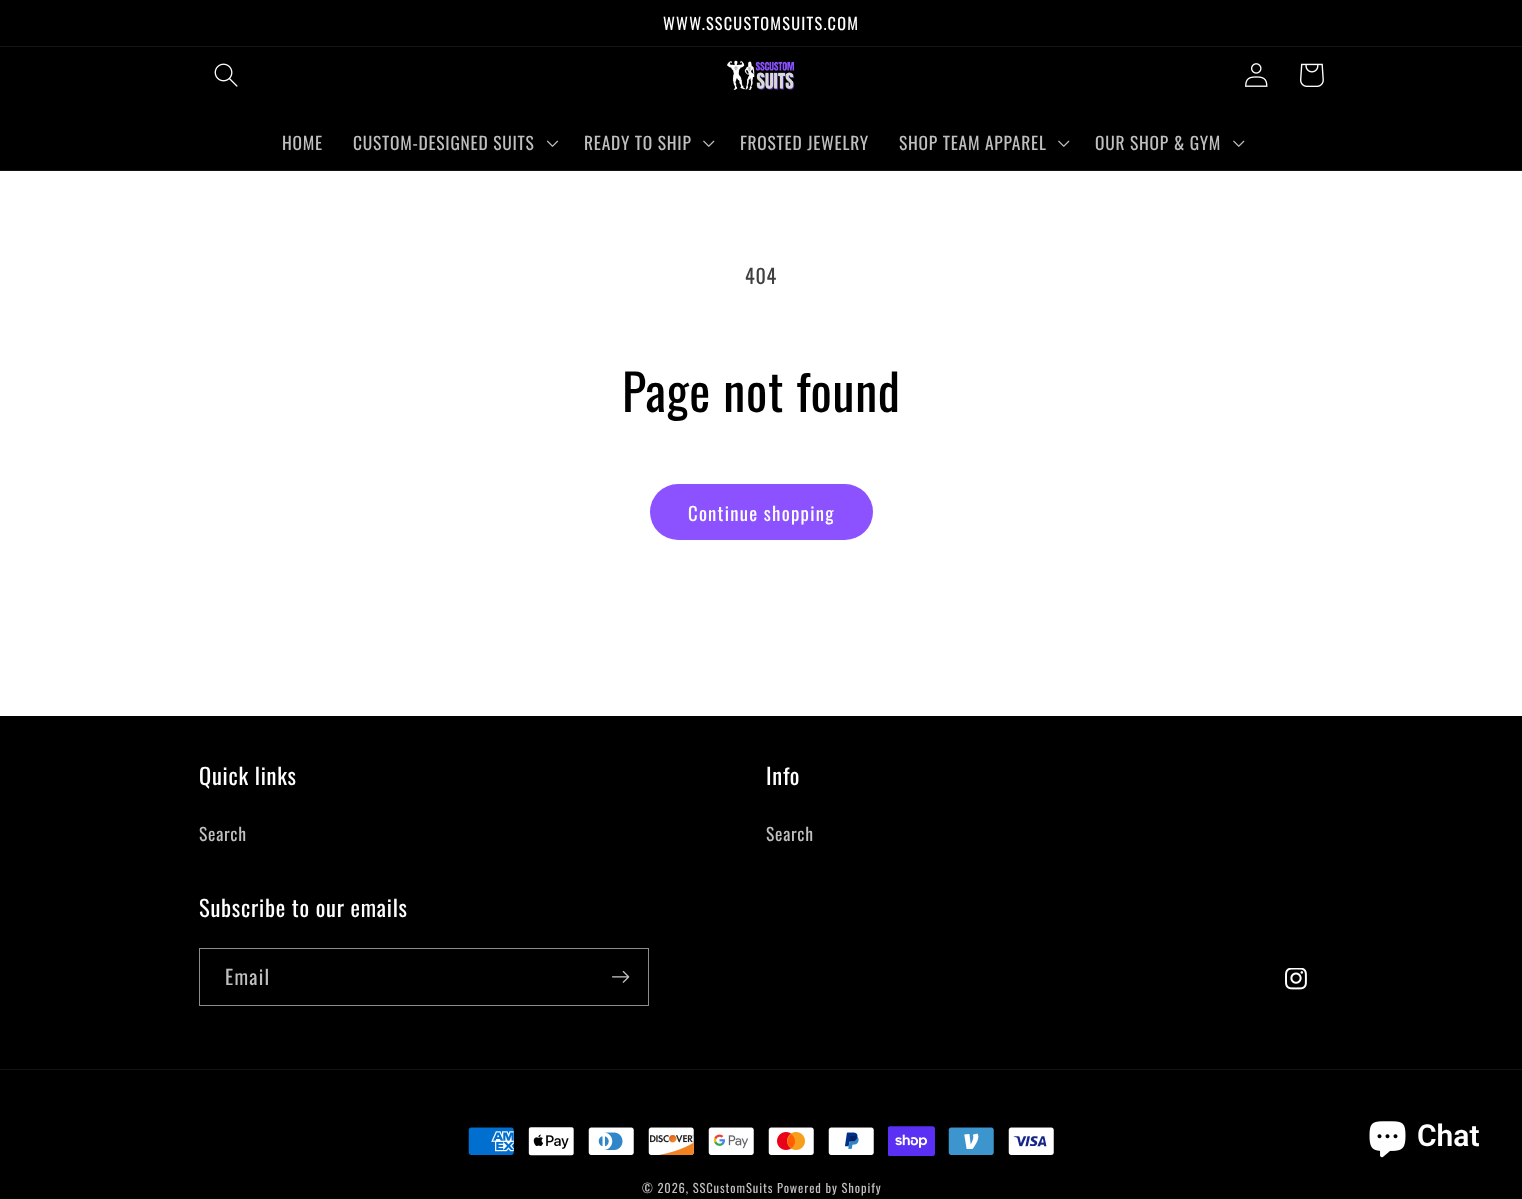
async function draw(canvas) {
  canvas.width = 1522
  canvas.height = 1199
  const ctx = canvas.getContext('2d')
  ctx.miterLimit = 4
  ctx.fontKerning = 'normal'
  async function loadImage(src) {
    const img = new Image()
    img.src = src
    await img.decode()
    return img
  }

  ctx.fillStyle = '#fff'
  ctx.fillRect(0, 0, 1522, 1199)
  ctx.fillStyle = '#000'
  ctx.fillRect(0, 0, 1522, 170)
  ctx.fillStyle = '#141414'
  ctx.fillRect(0, 46, 1522, 1)
  ctx.letterSpacing = '1.25px'
  ctx.font = '16.25px Oswald'
  ctx.fillStyle = '#fff'
  ctx.fillText('WWW.SSCUSTOMSUITS.COM', 663, 30)
  ctx.fillStyle = '#141414'
  ctx.fillRect(0, 170, 1522, 1)
  ctx.drawImage(await loadImage('image0.png'), 214, 63, 24, 24)
  ctx.drawImage(await loadImage('image1.png'), 727, 60, 68, 30)
  ctx.drawImage(await loadImage('image2.png'), 1245, 63, 23, 24)
  ctx.drawImage(await loadImage('image3.png'), 1300, 63, 24, 24)
  ctx.letterSpacing = '0.75px'
  ctx.font = '17.5px Oswald'
  ctx.fillStyle = '#bfbfbf'
  ctx.fillText('HOME', 282, 150)
  ctx.fillText('CUSTOM-DESIGNED SUITS', 353, 150)
  ctx.drawImage(await loadImage('image4.png'), 546, 140, 13, 7)
  ctx.fillText('READY TO SHIP', 584, 150)
  ctx.drawImage(await loadImage('image5.png'), 703, 140, 12, 7)
  ctx.fillText('FROSTED JEWELRY', 740, 150)
  ctx.fillText('SHOP TEAM APPAREL', 899, 150)
  ctx.drawImage(await loadImage('image5.png'), 1058, 140, 12, 7)
  ctx.fillText('OUR SHOP & GYM', 1095, 150)
  ctx.drawImage(await loadImage('image5.png'), 1233, 140, 12, 7)
  ctx.font = '20px Oswald'
  ctx.fillStyle = '#404040'
  ctx.fillText('404', 745, 284)
  ctx.font = '50px Oswald'
  ctx.fillStyle = '#000'
  ctx.fillText('Page not found', 622, 412)
  ctx.fillStyle = '#8c52ff'
  ctx.beginPath()
  ctx.roundRect(650, 484, 223, 56, 28)
  ctx.fill()
  ctx.letterSpacing = '1.25px'
  ctx.font = '18.75px Oswald'
  ctx.fillStyle = '#fff'
  ctx.fillText('Continue shopping', 688, 521)
  ctx.fillStyle = '#000'
  ctx.fillRect(0, 716, 1522, 483)
  ctx.letterSpacing = '0.75px'
  ctx.font = '22.5px Oswald'
  ctx.fillStyle = '#fff'
  ctx.fillText('Quick links', 199, 785)
  ctx.font = '17.5px Oswald'
  ctx.fillStyle = '#bfbfbf'
  ctx.fillText('Search', 199, 841)
  ctx.font = '22.5px Oswald'
  ctx.fillStyle = '#fff'
  ctx.fillText('Info', 766, 785)
  ctx.font = '17.5px Oswald'
  ctx.fillStyle = '#bfbfbf'
  ctx.fillText('Search', 766, 841)
  ctx.font = '22.5px Oswald'
  ctx.fillStyle = '#fff'
  ctx.fillText('Subscribe to our emails', 199, 917)
  ctx.strokeStyle = '#8c8c8c'
  ctx.strokeRect(199.5, 948.5, 449, 57)
  ctx.letterSpacing = '1.25px'
  ctx.font = '20px Oswald'
  ctx.fillStyle = '#bfbfbf'
  ctx.fillText('Email', 225, 985)
  ctx.drawImage(await loadImage('image6.png'), 612, 970, 18, 13)
  ctx.drawImage(await loadImage('image7.png'), 1285, 968, 22, 22)
  ctx.fillStyle = '#141414'
  ctx.fillRect(0, 1069, 1522, 1)
  ctx.drawImage(await loadImage('image8.png'), 468, 1127, 46, 28)
  ctx.drawImage(await loadImage('image9.png'), 528, 1127, 46, 29)
  ctx.drawImage(await loadImage('image10.png'), 588, 1127, 46, 28)
  ctx.drawImage(await loadImage('image11.png'), 648, 1127, 46, 28)
  ctx.drawImage(await loadImage('image12.png'), 708, 1127, 46, 28)
  ctx.drawImage(await loadImage('image13.png'), 768, 1127, 46, 28)
  ctx.drawImage(await loadImage('image14.png'), 828, 1127, 46, 28)
  ctx.drawImage(await loadImage('image15.png'), 888, 1126, 47, 30)
  ctx.drawImage(await loadImage('image16.png'), 948, 1127, 46, 28)
  ctx.drawImage(await loadImage('image17.png'), 1008, 1127, 46, 28)
  ctx.letterSpacing = '0.9px'
  ctx.font = '12.5px Oswald'
  ctx.fillStyle = '#bfbfbf'
  ctx.fillText('© 2026, SSCustomSuits', 642, 1193)
  ctx.fillText('Powered by Shopify', 777, 1193)
  ctx.drawImage(await loadImage('image18.png'), 1369, 1121, 37, 37)
  ctx.letterSpacing = '0px'
  ctx.font = '600 30px Roboto'
  ctx.fillStyle = '#fff'
  ctx.fillText('Chat', 1417, 1146)
}

draw(document.querySelector('canvas'))
